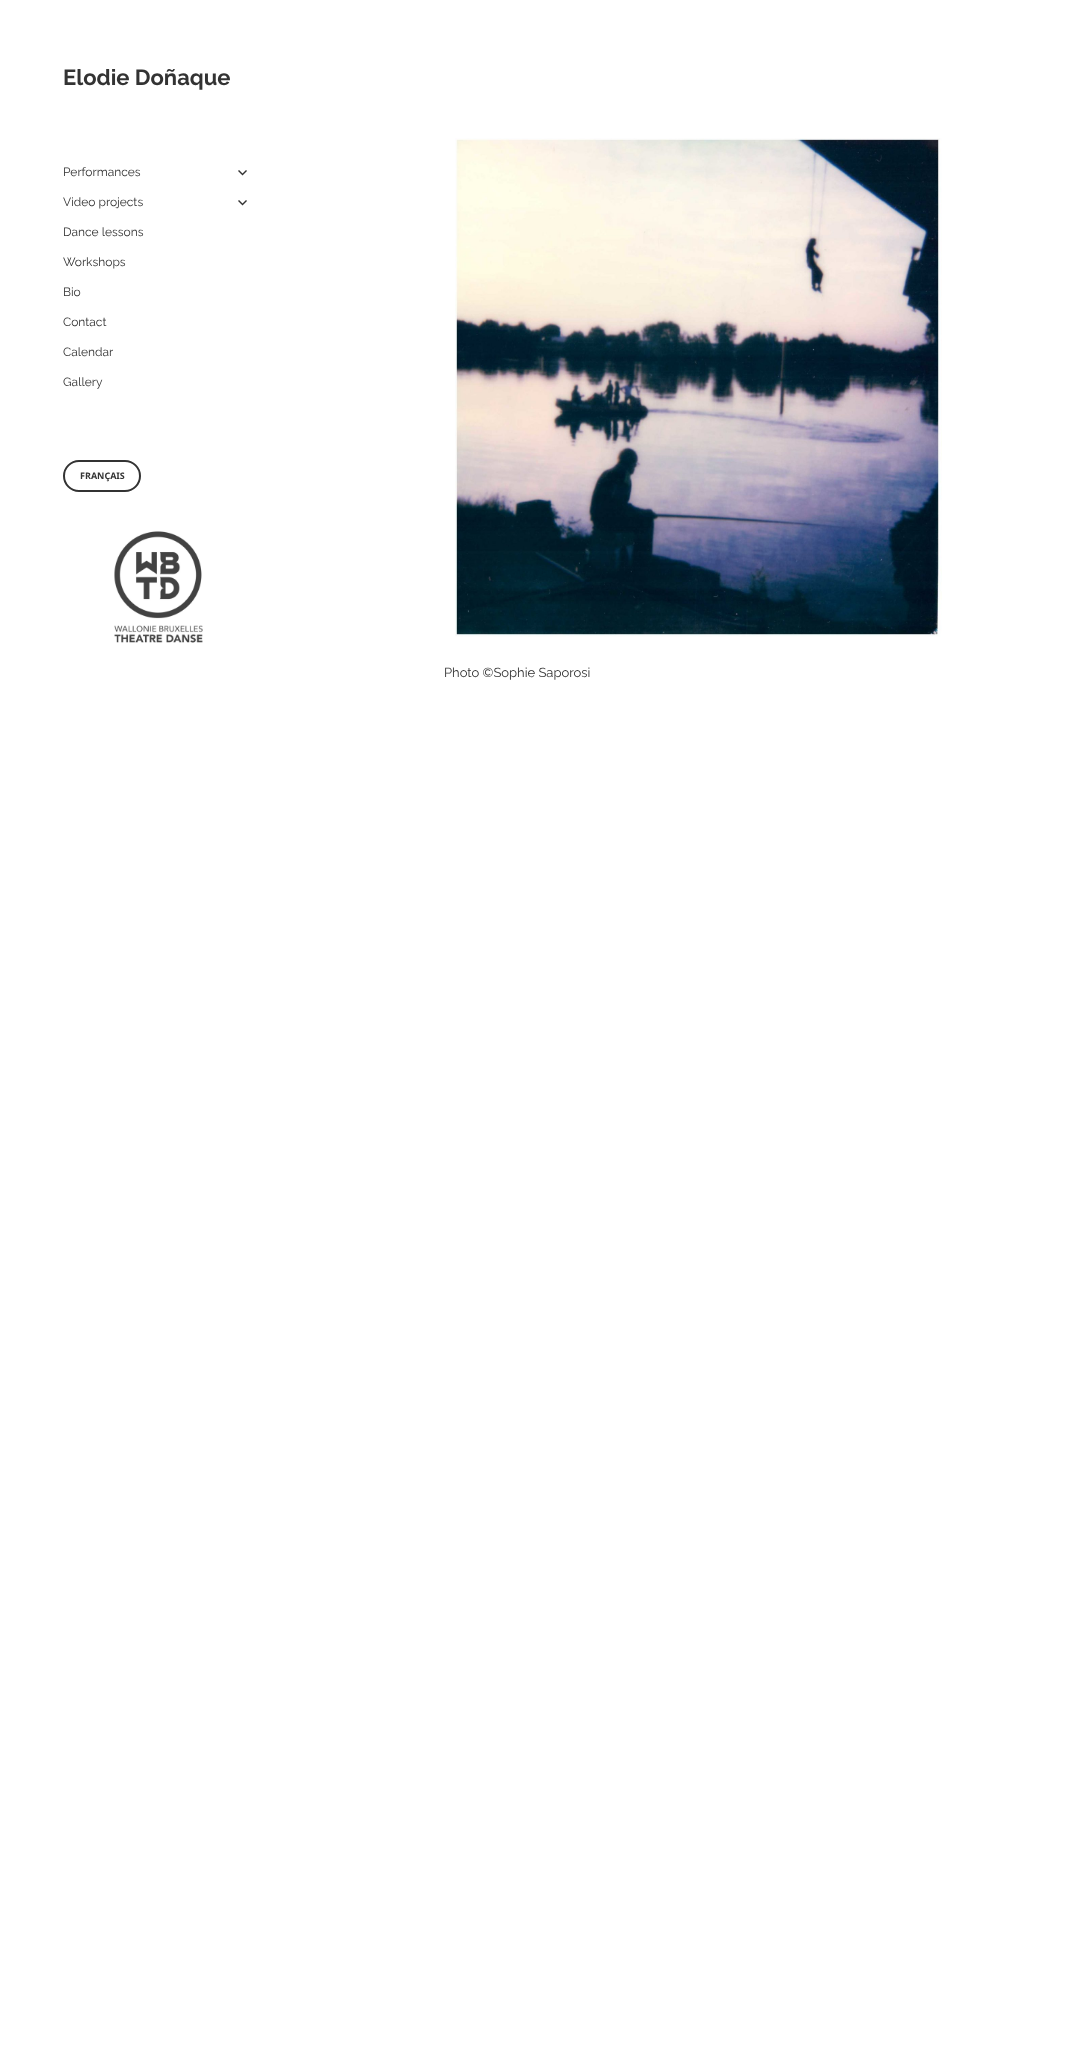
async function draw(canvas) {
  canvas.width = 1078
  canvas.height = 2055
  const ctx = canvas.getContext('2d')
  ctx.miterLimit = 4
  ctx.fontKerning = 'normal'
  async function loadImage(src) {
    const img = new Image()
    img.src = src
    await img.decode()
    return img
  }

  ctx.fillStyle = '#fff'
  ctx.fillRect(0, 0, 1078, 2055)
  ctx.font = 'bold 22px Raleway'
  ctx.fillStyle = '#333'
  ctx.fillText('Elodie Doñaque', 63, 85)
  ctx.font = '12px Raleway'
  ctx.fillText('Performances', 63, 176)
  ctx.drawImage(await loadImage('image0.png'), 238, 170, 9, 6)
  ctx.fillText('Video projects', 63, 206)
  ctx.drawImage(await loadImage('image0.png'), 238, 200, 9, 6)
  ctx.fillText('Dance lessons', 63, 236)
  ctx.fillText('Workshops', 63, 266)
  ctx.fillText('Bio', 63, 296)
  ctx.fillText('Contact', 63, 326)
  ctx.fillText('Calendar', 63, 356)
  ctx.fillText('Gallery', 63, 386)
  ctx.beginPath()
  ctx.roundRect(64, 461, 76, 30, 15)
  ctx.strokeStyle = '#333'
  ctx.lineWidth = 2
  ctx.stroke()
  ctx.font = 'bold 9px Noto Sans'
  ctx.fillText('FRANÇAIS', 80, 479)
  ctx.drawImage(await loadImage('image1.png'), 114, 531, 89, 112)
  ctx.drawImage(await loadImage('image2.png'), 455, 138, 487, 499)
  ctx.font = '13px Raleway'
  ctx.fillText('Photo ©Sophie Saporosi', 444, 677)
}

draw(document.querySelector('canvas'))
